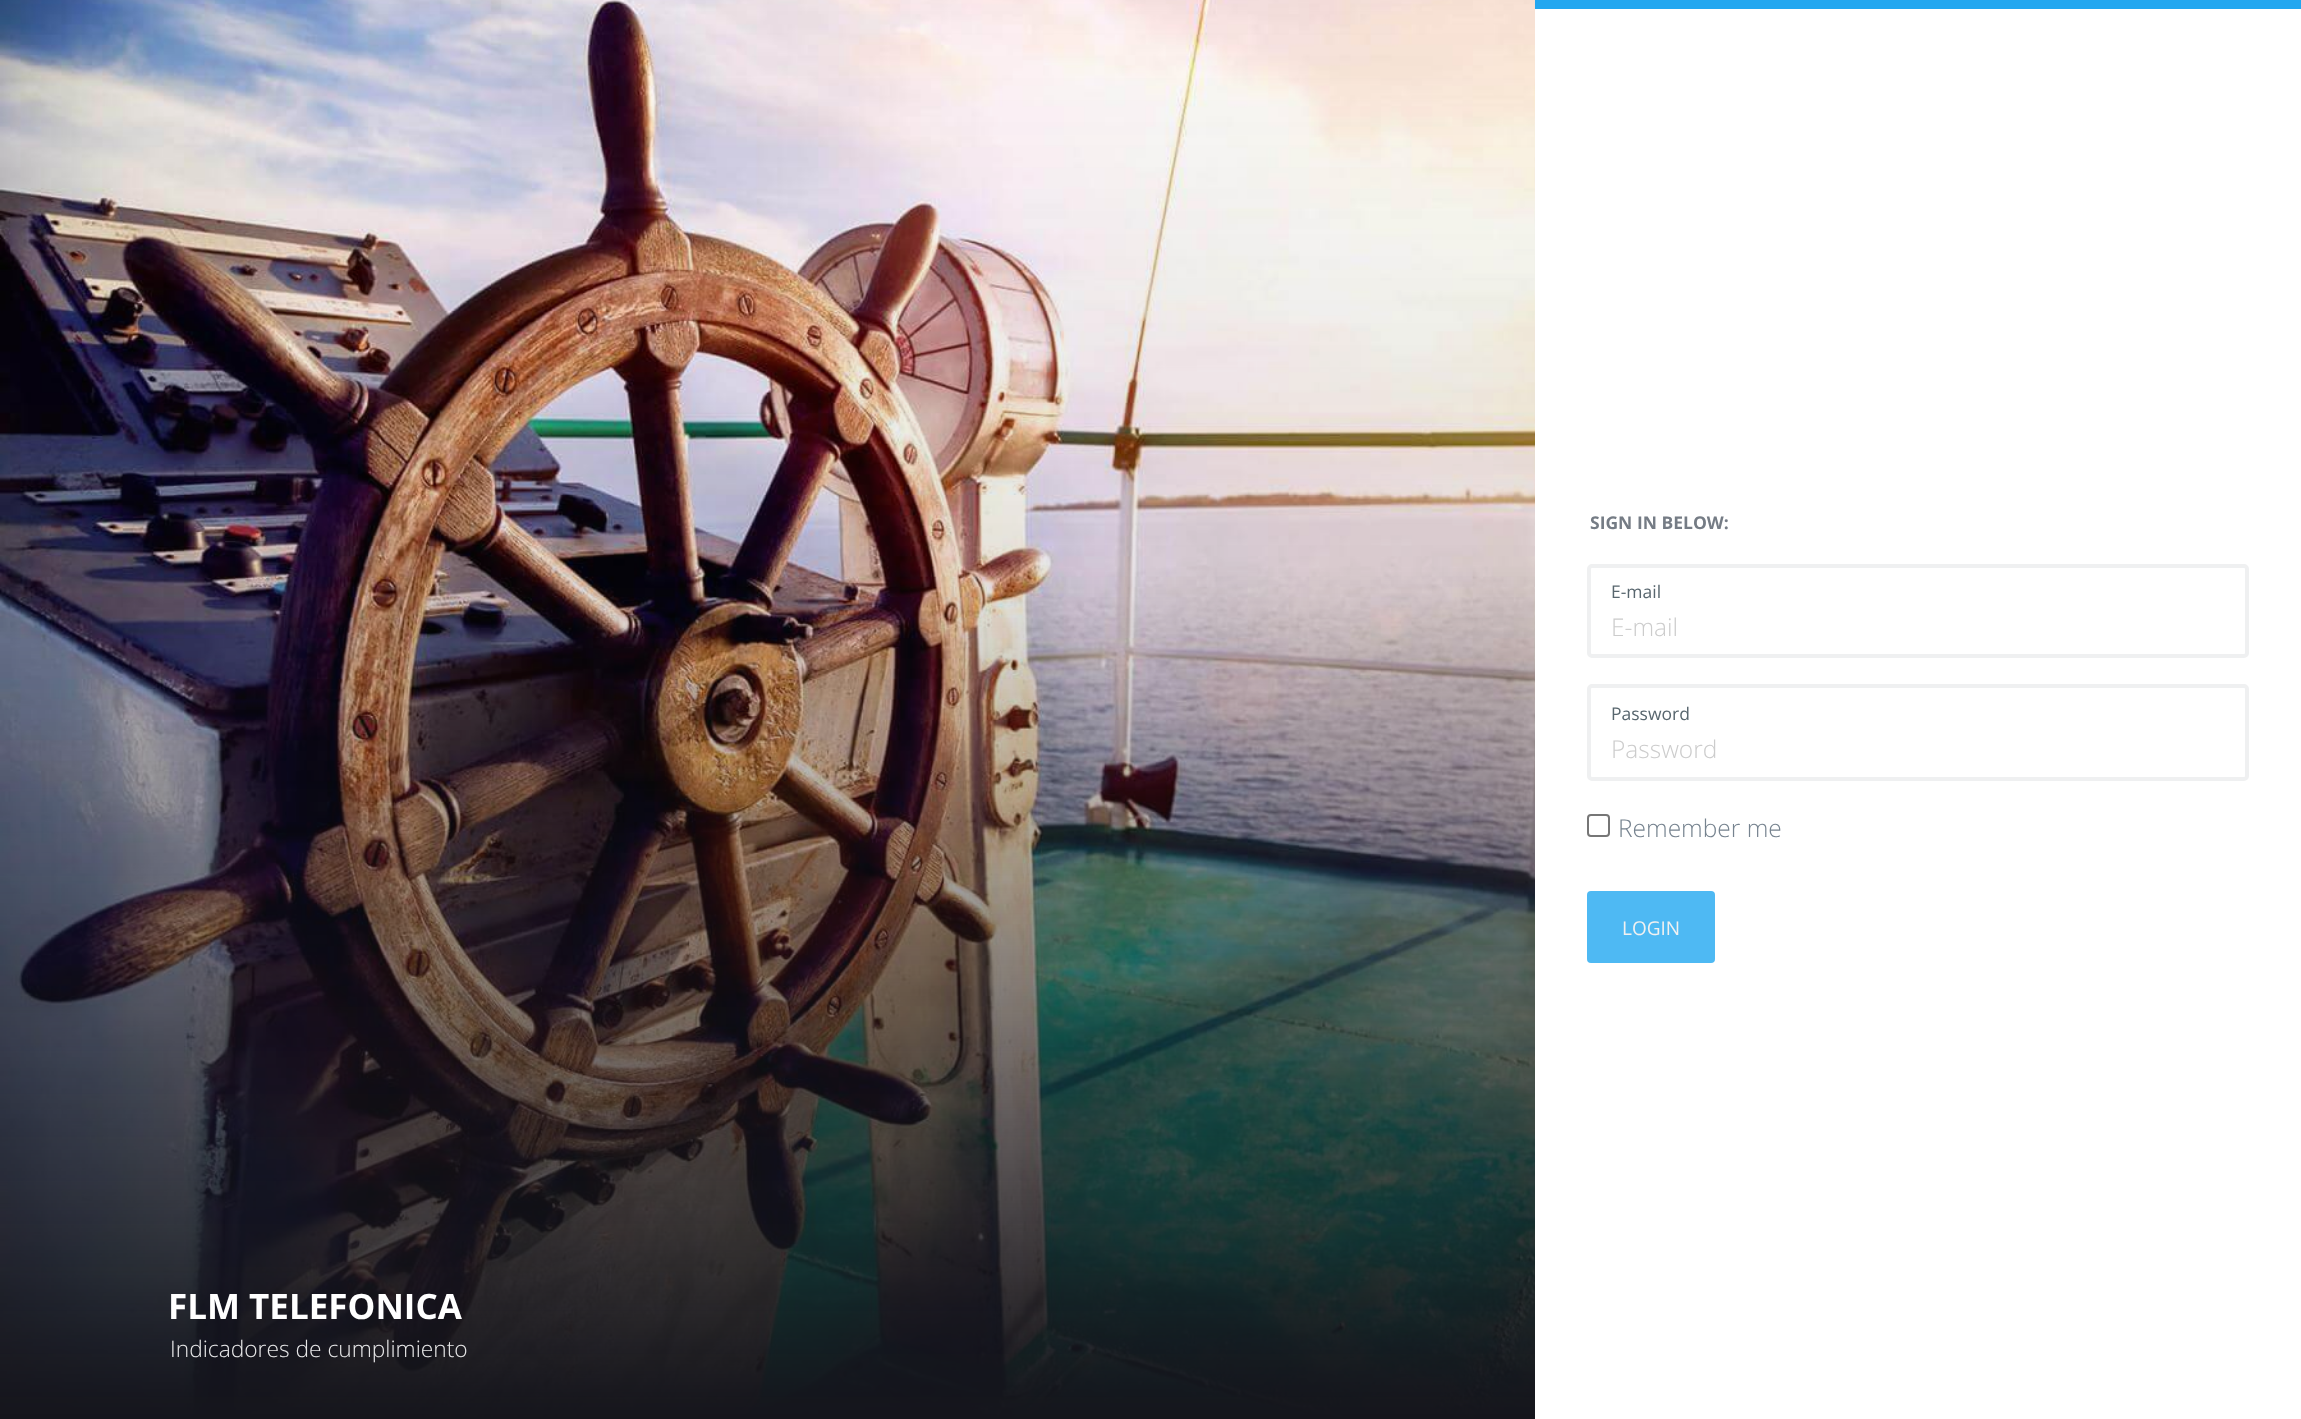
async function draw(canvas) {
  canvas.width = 2301
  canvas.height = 1419
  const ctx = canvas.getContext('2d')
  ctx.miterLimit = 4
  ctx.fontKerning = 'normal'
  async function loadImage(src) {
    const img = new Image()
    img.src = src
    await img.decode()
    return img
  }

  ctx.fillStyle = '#fff'
  ctx.fillRect(0, 0, 2301, 1419)
  ctx.drawImage(await loadImage('image0.png'), 0, 0, 1535, 1419)
  ctx.fillStyle = '#22a7f0'
  ctx.fillRect(1535, 0, 766, 9)
  ctx.font = 'bold 17.5px Open Sans'
  ctx.fillStyle = '#757c85'
  ctx.fillText('SIGN IN BELOW:', 1590, 529)
  ctx.beginPath()
  ctx.roundRect(1589, 566, 658, 90, 3)
  ctx.strokeStyle = '#eff0f1'
  ctx.lineWidth = 4
  ctx.stroke()
  ctx.font = '17.5px Open Sans'
  ctx.fillStyle = '#58666e'
  ctx.fillText('E-mail', 1611, 598)
  ctx.font = '300 24.5px Open Sans'
  ctx.fillStyle = '#ccc'
  ctx.fillText('E-mail', 1611, 636)
  ctx.beginPath()
  ctx.roundRect(1589, 686, 658, 93, 3)
  ctx.stroke()
  ctx.font = '17.5px Open Sans'
  ctx.fillStyle = '#58666e'
  ctx.fillText('Password', 1611, 720)
  ctx.font = '300 24.5px Open Sans'
  ctx.fillStyle = '#ccc'
  ctx.fillText('Password', 1611, 758)
  ctx.beginPath()
  ctx.roundRect(1588, 815, 21, 21, 3)
  ctx.strokeStyle = '#767676'
  ctx.lineWidth = 2
  ctx.stroke()
  ctx.fillStyle = '#76838f'
  ctx.fillText('Remember me', 1618, 837)
  ctx.fillStyle = '#4eb9f3'
  ctx.beginPath()
  ctx.roundRect(1587, 891, 128, 72, 4)
  ctx.fill()
  ctx.font = '19px Open Sans'
  ctx.fillStyle = '#f1f1f1'
  ctx.fillText('LOGIN', 1622, 935)
  ctx.font = 'bold 35px Open Sans'
  ctx.fillStyle = '#fff'
  ctx.fillText('FLM TELEFONICA', 168, 1319)
  ctx.font = '300 22.75px Open Sans'
  ctx.fillStyle = '#e8e8e9'
  ctx.fillText('Indicadores de cumplimiento', 170, 1357)
}

draw(document.querySelector('canvas'))
